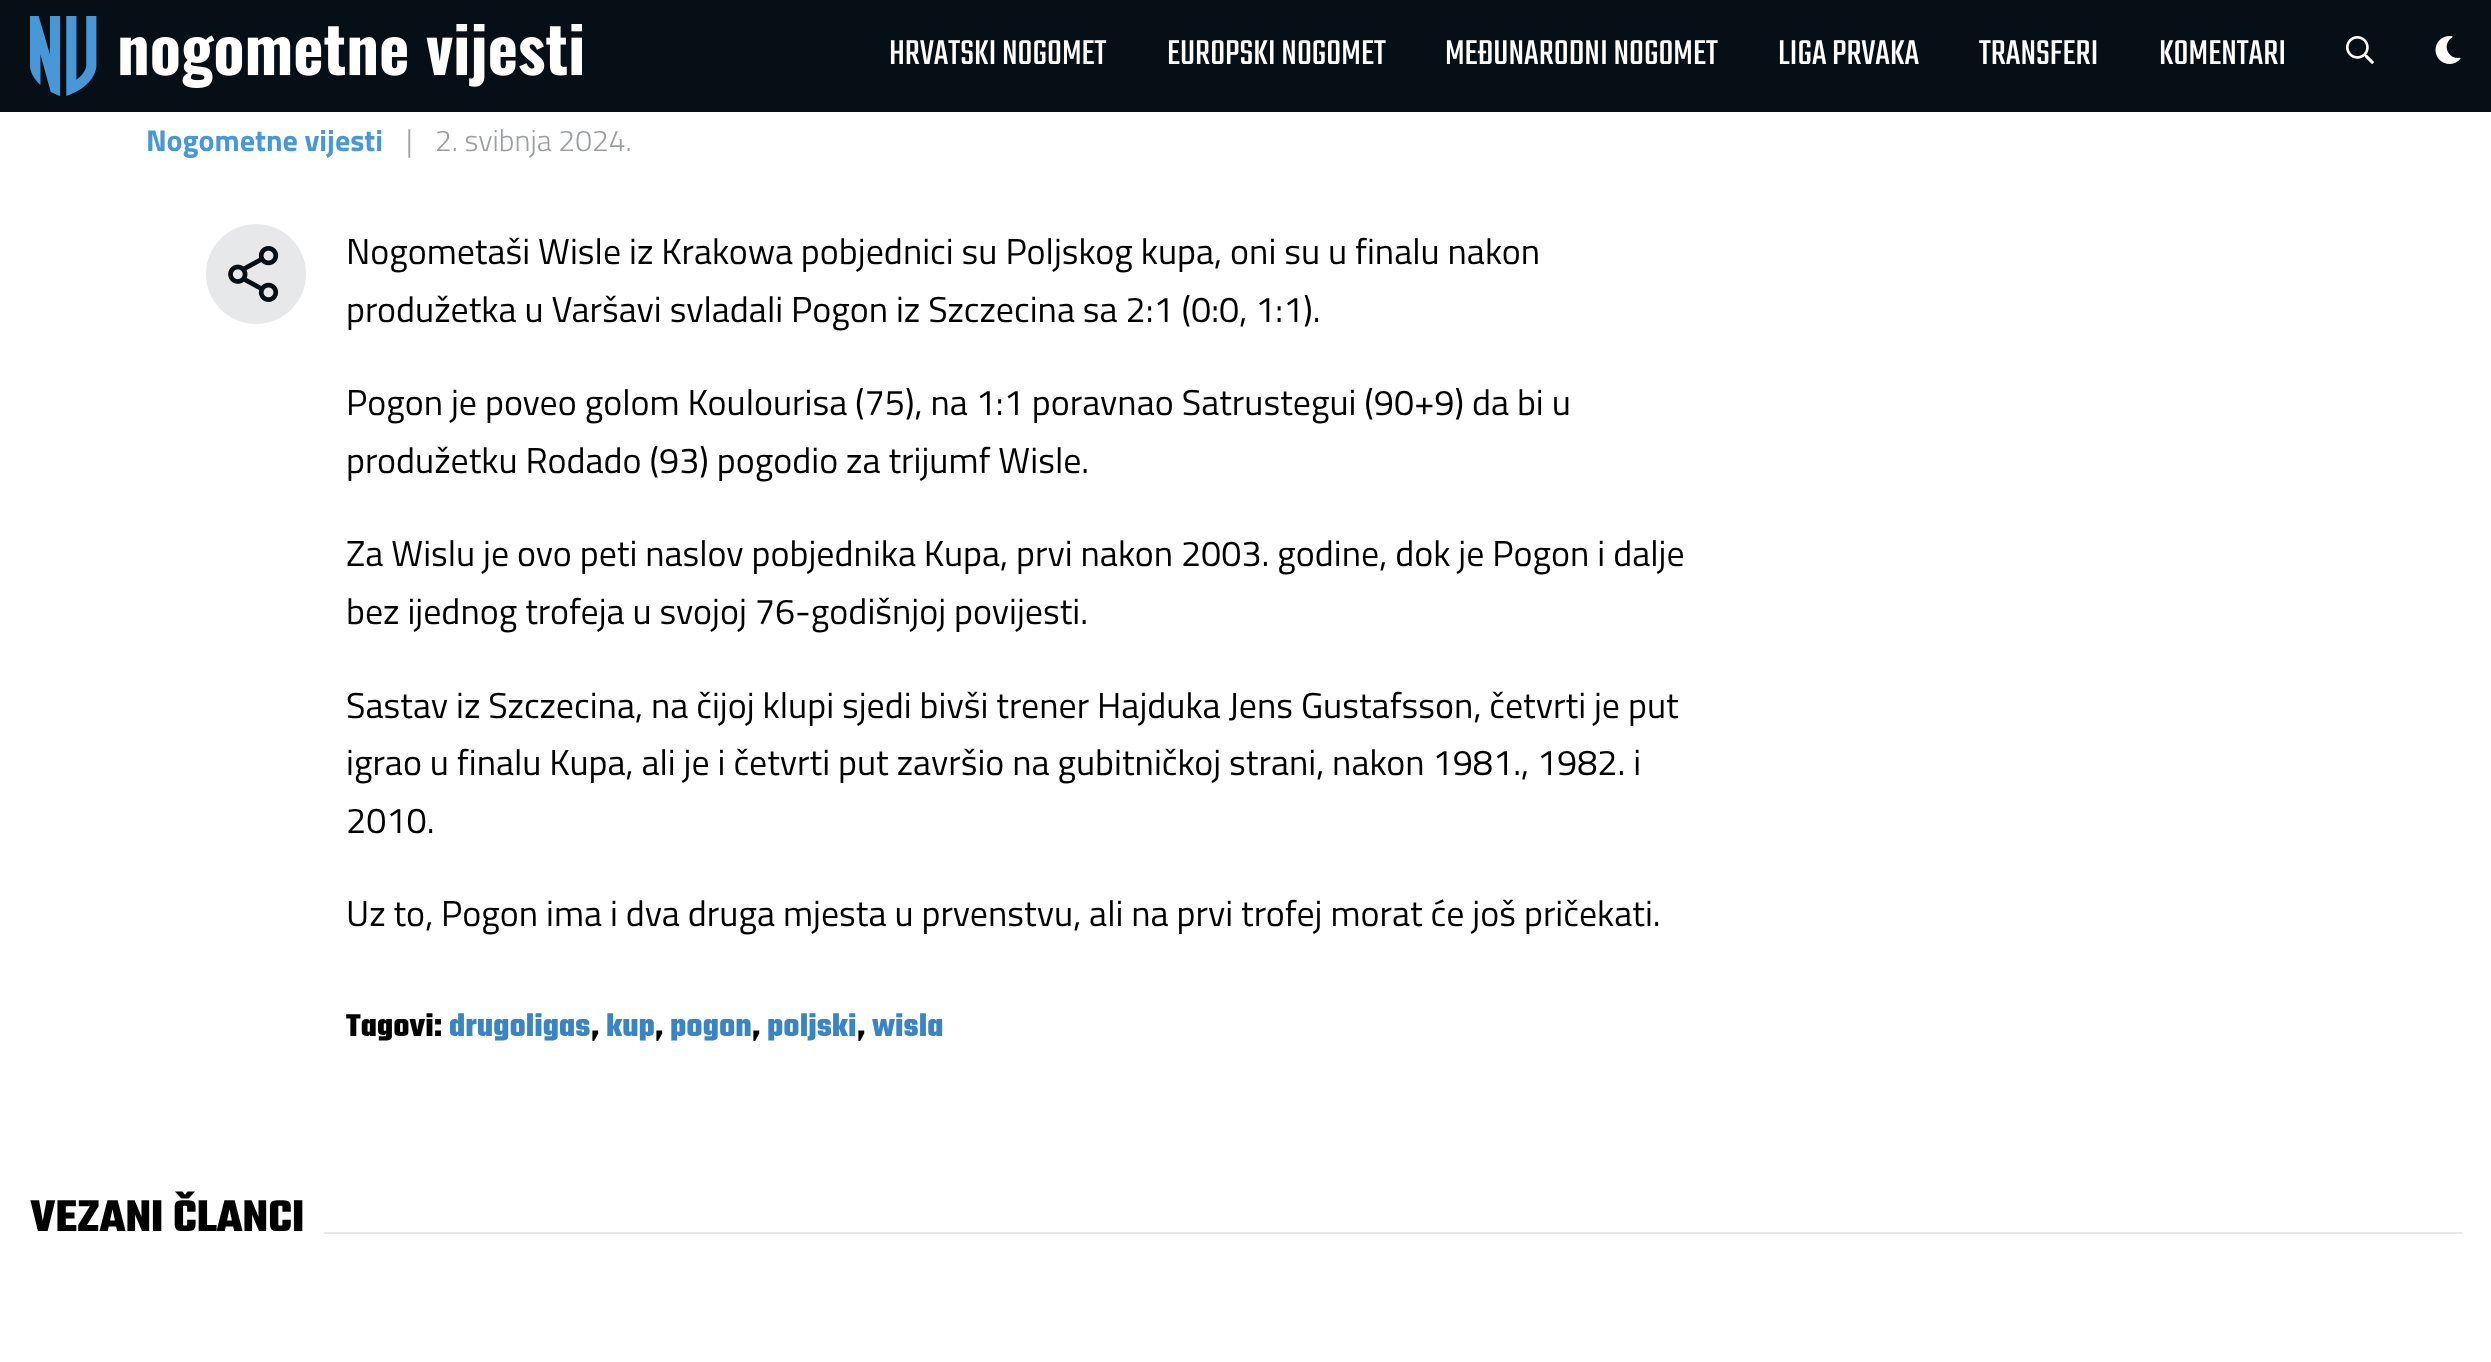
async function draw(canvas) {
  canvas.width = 2491
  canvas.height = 1362
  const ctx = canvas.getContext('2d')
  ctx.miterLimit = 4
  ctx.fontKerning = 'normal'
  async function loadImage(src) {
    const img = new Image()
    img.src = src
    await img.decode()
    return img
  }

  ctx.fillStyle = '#fff'
  ctx.fillRect(0, 0, 2491, 1362)
  ctx.fillStyle = '#070f16'
  ctx.fillRect(0, 0, 2491, 112)
  ctx.drawImage(await loadImage('image0.png'), 30, 16, 552, 80)
  ctx.font = '38px Teko'
  ctx.fillStyle = '#fff'
  ctx.fillText('HRVATSKI NOGOMET', 889, 64)
  ctx.fillText('EUROPSKI NOGOMET', 1167, 64)
  ctx.fillText('MEĐUNARODNI NOGOMET', 1445, 64)
  ctx.fillText('LIGA PRVAKA', 1778, 64)
  ctx.fillText('TRANSFERI', 1979, 64)
  ctx.fillText('KOMENTARI', 2159, 64)
  ctx.drawImage(await loadImage('image1.png'), 2346, 36, 28, 28)
  ctx.drawImage(await loadImage('image2.png'), 2435, 36, 26, 28)
  ctx.font = 'bold 30px Titillium Web'
  ctx.fillStyle = '#4898d7'
  ctx.fillText('Nogometne vijesti', 146, 151)
  ctx.font = '300 30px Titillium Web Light'
  ctx.fillStyle = '#9c9fa2'
  ctx.fillText('|', 406, 151)
  ctx.fillText('2. svibnja 2024.', 435, 151)
  ctx.drawImage(await loadImage('image3.png'), 206, 224, 100, 100)
  ctx.font = '36px Titillium Web'
  ctx.fillStyle = '#000'
  ctx.fillText('Nogometaši Wisle iz Krakowa pobjednici su Poljskog kupa, oni su u finalu nakon', 346, 264)
  ctx.fillText('produžetka u Varšavi svladali Pogon iz Szczecina sa 2:1 (0:0, 1:1).', 346, 322)
  ctx.fillText('Pogon je poveo golom Koulourisa (75), na 1:1 poravnao Satrustegui (90+9) da bi u', 346, 415)
  ctx.fillText('produžetku Rodado (93) pogodio za trijumf Wisle.', 346, 473)
  ctx.fillText('Za Wislu je ovo peti naslov pobjednika Kupa, prvi nakon 2003. godine, dok je Pogon i dalje', 346, 566)
  ctx.fillText('bez ijednog trofeja u svojoj 76-godišnjoj povijesti.', 346, 624)
  ctx.fillText('Sastav iz Szczecina, na čijoj klupi sjedi bivši trener Hajduka Jens Gustafsson, četvrti je put', 346, 718)
  ctx.fillText('igrao u finalu Kupa, ali je i četvrti put završio na gubitničkoj strani, nakon 1981., 1982. i', 346, 775)
  ctx.fillText('2010.', 346, 833)
  ctx.fillText('Uz to, Pogon ima i dva druga mjesta u prvenstvu, ali na prvi trofej morat će još pričekati.', 346, 926)
  ctx.font = 'bold 34px Teko'
  ctx.fillText('Tagovi:', 346, 1036)
  ctx.fillStyle = '#3b84c3'
  ctx.fillText('drugoligas', 449, 1036)
  ctx.fillStyle = '#000'
  ctx.fillText(',', 591, 1036)
  ctx.fillStyle = '#3b84c3'
  ctx.fillText('kup', 606, 1036)
  ctx.fillStyle = '#000'
  ctx.fillText(',', 655, 1036)
  ctx.fillStyle = '#3b84c3'
  ctx.fillText('pogon', 670, 1036)
  ctx.fillStyle = '#000'
  ctx.fillText(',', 752, 1036)
  ctx.fillStyle = '#3b84c3'
  ctx.fillText('poljski', 767, 1036)
  ctx.fillStyle = '#000'
  ctx.fillText(',', 857, 1036)
  ctx.fillStyle = '#3b84c3'
  ctx.fillText('wisla', 872, 1036)
  ctx.font = 'bold 48px Teko'
  ctx.fillStyle = '#000'
  ctx.fillText('VEZANI ČLANCI', 30, 1231)
  ctx.fillStyle = '#e7e8e9'
  ctx.fillRect(324, 1232, 2138, 2)
}

draw(document.querySelector('canvas'))
